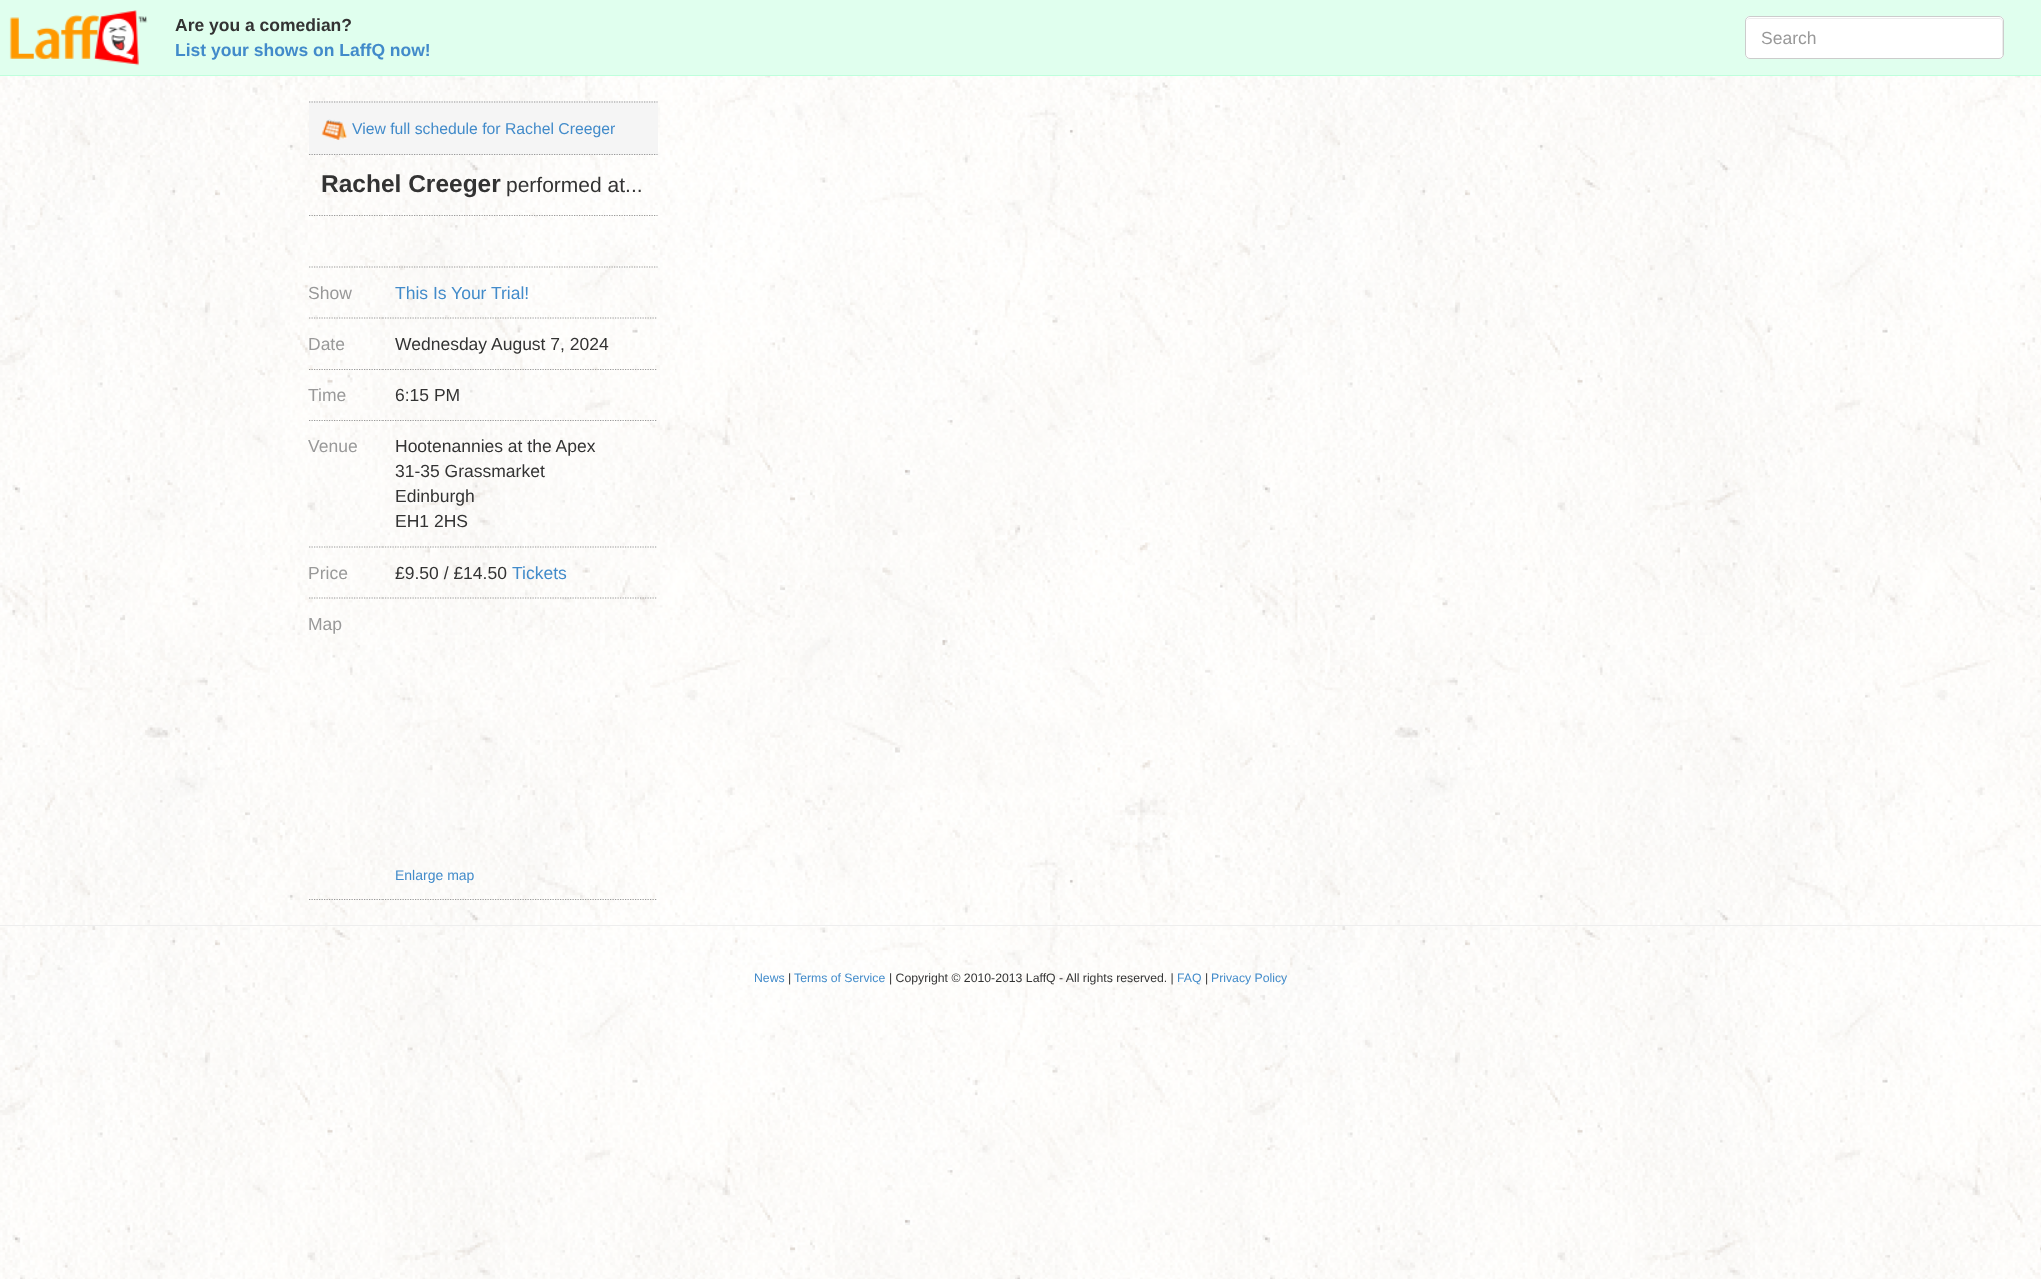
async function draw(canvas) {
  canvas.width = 2041
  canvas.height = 1279
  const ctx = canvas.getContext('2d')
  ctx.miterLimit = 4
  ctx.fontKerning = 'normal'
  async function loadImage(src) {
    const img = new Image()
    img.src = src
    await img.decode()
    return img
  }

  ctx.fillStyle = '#fff'
  ctx.fillRect(0, 0, 2041, 1279)
  ctx.drawImage(await loadImage('image0.png'), 0, 76, 2041, 1203)
  ctx.fillStyle = '#e0ffee'
  ctx.fillRect(0, 0, 2041, 75)
  ctx.fillStyle = '#bfffdc'
  ctx.fillRect(0, 75, 2041, 1)
  ctx.drawImage(await loadImage('image1.png'), 9, 10, 139, 56)
  ctx.font = 'bold 17.5px Liberation Sans'
  ctx.fillStyle = '#333'
  ctx.fillText('Are you a comedian?', 175, 31)
  ctx.fillStyle = '#428bca'
  ctx.fillText('List your shows on LaffQ now!', 175, 56)
  ctx.fillStyle = '#fff'
  ctx.beginPath()
  ctx.roundRect(1745, 16, 259, 43, 5)
  ctx.fill()
  ctx.fillStyle = '#ececec'
  ctx.beginPath()
  ctx.moveTo(1750, 19)
  ctx.lineTo(1999, 19)
  ctx.bezierCurveTo(2001, 19, 2002, 20, 2002, 22)
  ctx.lineTo(2002, 57)
  ctx.bezierCurveTo(2002, 56, 2003, 55, 2003, 54)
  ctx.lineTo(2003, 22)
  ctx.bezierCurveTo(2003, 20, 2001, 18, 1999, 18)
  ctx.lineTo(1750, 18)
  ctx.bezierCurveTo(1748, 18, 1746, 20, 1746, 22)
  ctx.bezierCurveTo(1746, 20, 1748, 19, 1750, 19)
  ctx.closePath()
  ctx.fill()
  ctx.beginPath()
  ctx.roundRect(1745.5, 16.5, 258, 42, 4.5)
  ctx.strokeStyle = '#ccc'
  ctx.stroke()
  ctx.font = '17.5px Liberation Sans'
  ctx.fillStyle = '#999'
  ctx.fillText('Search', 1761, 44)
  ctx.fillStyle = '#f5f5f5'
  ctx.fillRect(309, 101, 349, 54)
  ctx.beginPath()
  ctx.moveTo(309, 102)
  ctx.lineTo(657.5, 102)
  ctx.strokeStyle = '#999'
  ctx.lineWidth = 1.2
  ctx.setLineDash([1.25, 1.25])
  ctx.stroke()
  ctx.beginPath()
  ctx.moveTo(309, 154.5)
  ctx.lineTo(657.5, 154.5)
  ctx.stroke()
  ctx.drawImage(await loadImage('image2.png'), 321, 119, 27, 21)
  ctx.font = '15.75px Liberation Sans'
  ctx.fillStyle = '#428bca'
  ctx.fillText('View full schedule for Rachel Creeger', 352, 134)
  ctx.beginPath()
  ctx.moveTo(309, 215.5)
  ctx.lineTo(657.5, 215.5)
  ctx.stroke()
  ctx.font = 'bold 24.5px Liberation Sans'
  ctx.fillStyle = '#333'
  ctx.fillText('Rachel Creeger', 321, 192)
  ctx.font = '21px Liberation Sans'
  ctx.fillText('performed at...', 506, 192)
  ctx.beginPath()
  ctx.moveTo(309, 267)
  ctx.lineTo(657.5, 267)
  ctx.stroke()
  ctx.beginPath()
  ctx.moveTo(309, 318)
  ctx.lineTo(382.5, 318)
  ctx.stroke()
  ctx.font = '17.5px Liberation Sans'
  ctx.fillStyle = '#999'
  ctx.fillText('Show', 308, 299)
  ctx.beginPath()
  ctx.moveTo(382.5, 318)
  ctx.lineTo(657.5, 318)
  ctx.stroke()
  ctx.fillStyle = '#428bca'
  ctx.fillText('This Is Your Trial!', 395, 299)
  ctx.beginPath()
  ctx.moveTo(309, 369.5)
  ctx.lineTo(382.5, 369.5)
  ctx.stroke()
  ctx.fillStyle = '#999'
  ctx.fillText('Date', 308, 350)
  ctx.beginPath()
  ctx.moveTo(382.5, 369.5)
  ctx.lineTo(657.5, 369.5)
  ctx.stroke()
  ctx.fillStyle = '#333'
  ctx.fillText('Wednesday August 7, 2024', 395, 350)
  ctx.beginPath()
  ctx.moveTo(309, 420.5)
  ctx.lineTo(382.5, 420.5)
  ctx.stroke()
  ctx.fillStyle = '#999'
  ctx.fillText('Time', 308, 401)
  ctx.beginPath()
  ctx.moveTo(382.5, 420.5)
  ctx.lineTo(657.5, 420.5)
  ctx.stroke()
  ctx.fillStyle = '#333'
  ctx.fillText('6:15 PM', 395, 401)
  ctx.beginPath()
  ctx.moveTo(309, 547)
  ctx.lineTo(382.5, 547)
  ctx.stroke()
  ctx.fillStyle = '#999'
  ctx.fillText('Venue', 308, 452)
  ctx.beginPath()
  ctx.moveTo(382.5, 547)
  ctx.lineTo(657.5, 547)
  ctx.stroke()
  ctx.fillStyle = '#333'
  ctx.fillText('Hootenannies at the Apex', 395, 452)
  ctx.fillText('31-35 Grassmarket', 395, 477)
  ctx.fillText('Edinburgh', 395, 502)
  ctx.fillText('EH1 2HS', 395, 527)
  ctx.beginPath()
  ctx.moveTo(309, 598)
  ctx.lineTo(382.5, 598)
  ctx.stroke()
  ctx.fillStyle = '#999'
  ctx.fillText('Price', 308, 579)
  ctx.beginPath()
  ctx.moveTo(382.5, 598)
  ctx.lineTo(657.5, 598)
  ctx.stroke()
  ctx.fillStyle = '#333'
  ctx.fillText('£9.50 / £14.50', 395, 579)
  ctx.fillStyle = '#428bca'
  ctx.fillText('Tickets', 512, 579)
  ctx.beginPath()
  ctx.moveTo(309, 899.5)
  ctx.lineTo(382.5, 899.5)
  ctx.stroke()
  ctx.fillStyle = '#999'
  ctx.fillText('Map', 308, 630)
  ctx.beginPath()
  ctx.moveTo(382.5, 899.5)
  ctx.lineTo(657.5, 899.5)
  ctx.stroke()
  ctx.font = '14px Liberation Sans'
  ctx.fillStyle = '#428bca'
  ctx.fillText('Enlarge map', 395, 880)
  ctx.fillStyle = '#eee'
  ctx.fillRect(0, 925, 2041, 1)
  ctx.font = '12.25px Liberation Sans'
  ctx.fillStyle = '#428bca'
  ctx.fillText('News', 754, 982)
  ctx.fillStyle = '#333'
  ctx.fillText('|', 788, 982)
  ctx.fillStyle = '#428bca'
  ctx.fillText('Terms of Service', 794, 982)
  ctx.fillStyle = '#333'
  ctx.fillText('| Copyright © 2010-2013 LaffQ - All rights reserved. |', 889, 982)
  ctx.fillStyle = '#428bca'
  ctx.fillText('FAQ', 1177, 982)
  ctx.fillStyle = '#333'
  ctx.fillText('|', 1205, 982)
  ctx.fillStyle = '#428bca'
  ctx.fillText('Privacy Policy', 1211, 982)
}

draw(document.querySelector('canvas'))
